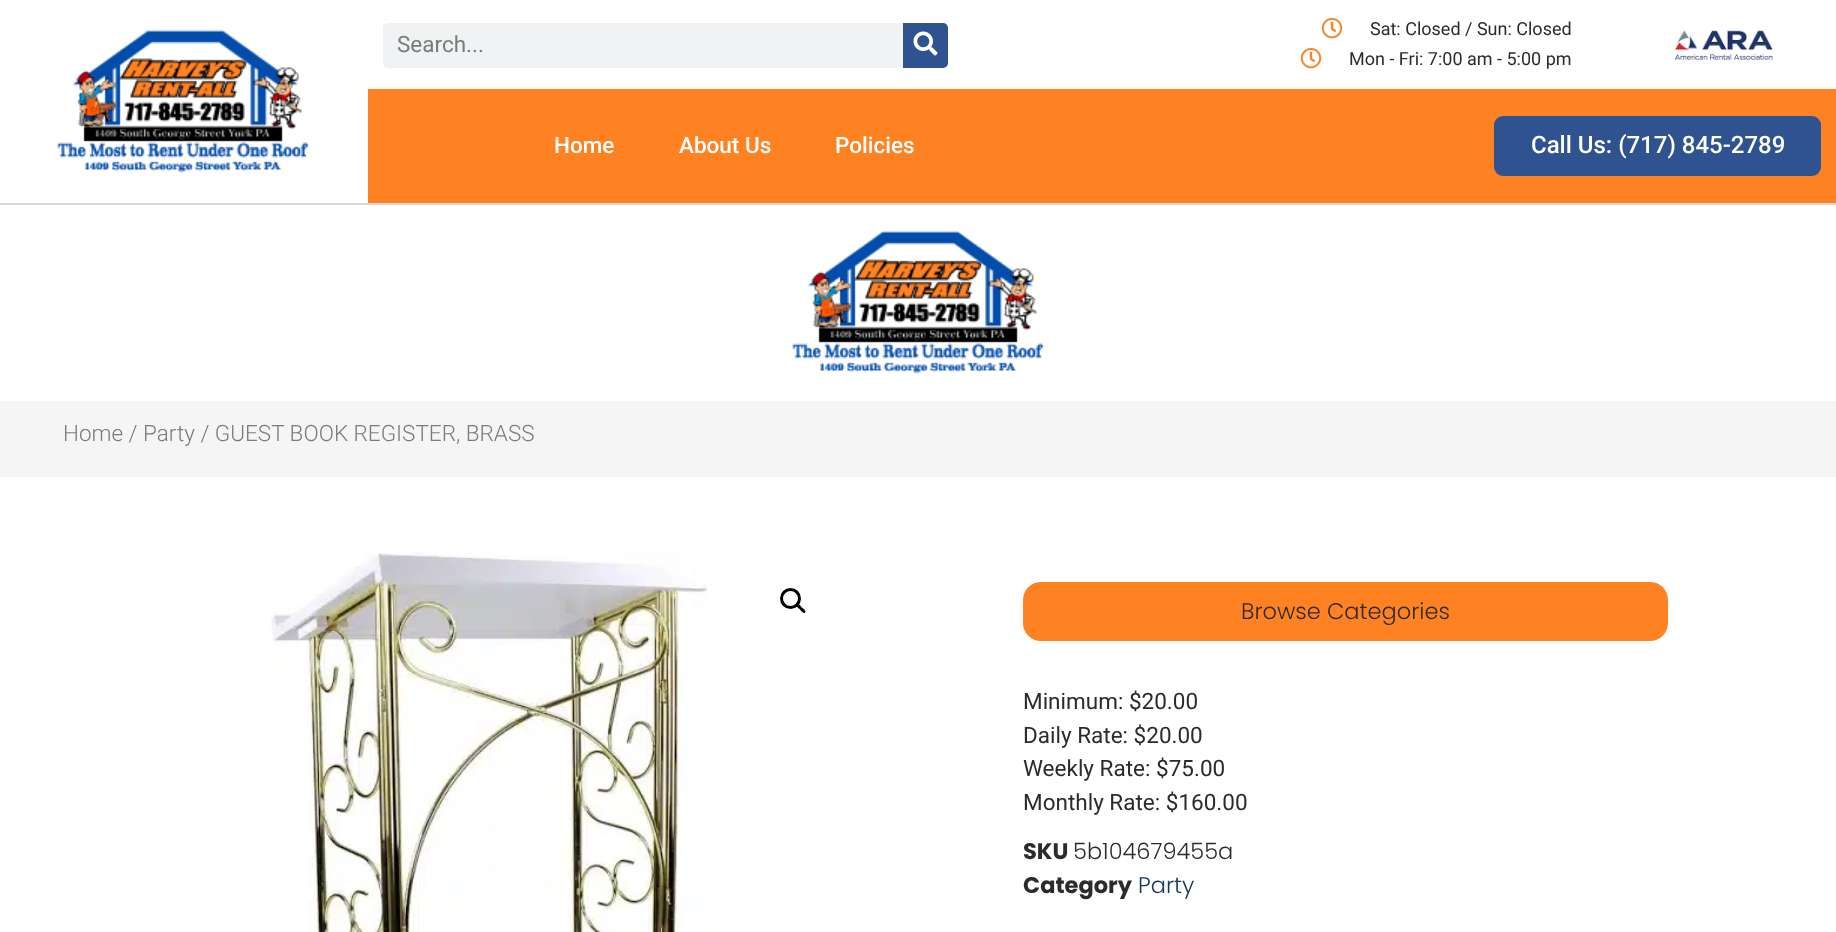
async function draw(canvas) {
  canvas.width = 1836
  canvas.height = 932
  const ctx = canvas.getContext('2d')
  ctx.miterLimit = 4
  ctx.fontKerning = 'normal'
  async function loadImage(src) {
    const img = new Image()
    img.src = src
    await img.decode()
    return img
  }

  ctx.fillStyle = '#fff'
  ctx.fillRect(0, 0, 1836, 932)
  ctx.fillStyle = '#d8d8d8'
  ctx.fillRect(0, 203, 1836, 2)
  ctx.drawImage(await loadImage('image0.png'), 56, 29, 254, 144)
  ctx.fillStyle = '#f1f2f3'
  ctx.beginPath()
  ctx.roundRect(383, 23, 565, 45, 5)
  ctx.fill()
  ctx.font = '22.5px Roboto'
  ctx.fillStyle = '#7a7b7b'
  ctx.fillText('Search...', 397, 52)
  ctx.fillStyle = '#2e5390'
  ctx.beginPath()
  ctx.roundRect(903, 23, 45, 45, [0, 5, 5, 0])
  ctx.fill()
  ctx.drawImage(await loadImage('image1.png'), 913, 31, 25, 25)
  ctx.drawImage(await loadImage('image2.png'), 1321, 18, 22, 21)
  ctx.font = '18px Roboto'
  ctx.fillStyle = '#2b2b2b'
  ctx.fillText('Sat: Closed / Sun: Closed', 1370, 35)
  ctx.drawImage(await loadImage('image2.png'), 1300, 48, 22, 21)
  ctx.fillText('Mon - Fri: 7:00 am - 5:00 pm', 1349, 65)
  ctx.drawImage(await loadImage('image3.png'), 1675, 30, 98, 30)
  ctx.fillStyle = '#ff8222'
  ctx.fillRect(368, 89, 1468, 114)
  ctx.font = '500 22.5px Roboto'
  ctx.fillStyle = '#fff'
  ctx.fillText('Home', 554, 153)
  ctx.fillText('About Us', 679, 153)
  ctx.fillText('Policies', 835, 153)
  ctx.fillStyle = '#2e5390'
  ctx.beginPath()
  ctx.roundRect(1494, 116, 327, 60, 9)
  ctx.fill()
  ctx.font = '500 24px Roboto'
  ctx.fillStyle = '#fff'
  ctx.fillText('Call Us: (717) 845-2789', 1531, 153)
  ctx.drawImage(await loadImage('image0.png'), 791, 230, 254, 144)
  ctx.fillStyle = '#f5f5f5'
  ctx.fillRect(0, 401, 1836, 76)
  ctx.font = '300 22.5px Roboto'
  ctx.fillStyle = '#7a7b7b'
  ctx.fillText('Home / Party / GUEST BOOK REGISTER, BRASS', 63, 441)
  ctx.drawImage(await loadImage('image4.png'), 271, 552, 446, 380)
  ctx.beginPath()
  ctx.arc(790.5, 598.5, 9, 0, 2 * Math.PI)
  ctx.strokeStyle = '#000'
  ctx.lineWidth = 3
  ctx.stroke()
  ctx.fillStyle = '#000'
  ctx.beginPath()
  ctx.moveTo(797, 604)
  ctx.bezierCurveTo(798.5, 602.5, 801, 606.5, 802, 607.5)
  ctx.bezierCurveTo(803, 608.5, 807, 611, 805, 612.5)
  ctx.bezierCurveTo(803.5, 614.5, 801, 610.5, 800, 609.5)
  ctx.bezierCurveTo(799, 608.5, 795, 606, 797, 604)
  ctx.closePath()
  ctx.fill()
  ctx.fillStyle = '#ff8222'
  ctx.beginPath()
  ctx.roundRect(1023, 582, 645, 59, 18)
  ctx.fill()
  ctx.font = '300 22.5px Poppins'
  ctx.fillStyle = '#2b2b2b'
  ctx.fillText('Browse Categories', 1241, 619)
  ctx.font = '22.5px Roboto'
  ctx.fillText('Minimum: $20.00', 1023, 709)
  ctx.fillText('Daily Rate: $20.00', 1023, 743)
  ctx.fillText('Weekly Rate: $75.00', 1023, 776)
  ctx.fillText('Monthly Rate: $160.00', 1023, 810)
  ctx.font = 'bold 22.5px Poppins'
  ctx.fillText('SKU', 1023, 859)
  ctx.font = '300 22.5px Poppins'
  ctx.fillText('5b104679455a', 1073, 859)
  ctx.font = 'bold 22.5px Poppins'
  ctx.fillText('Category', 1023, 893)
  ctx.font = '300 22.5px Poppins'
  ctx.fillStyle = '#163760'
  ctx.fillText('Party', 1138, 893)
}

draw(document.querySelector('canvas'))
